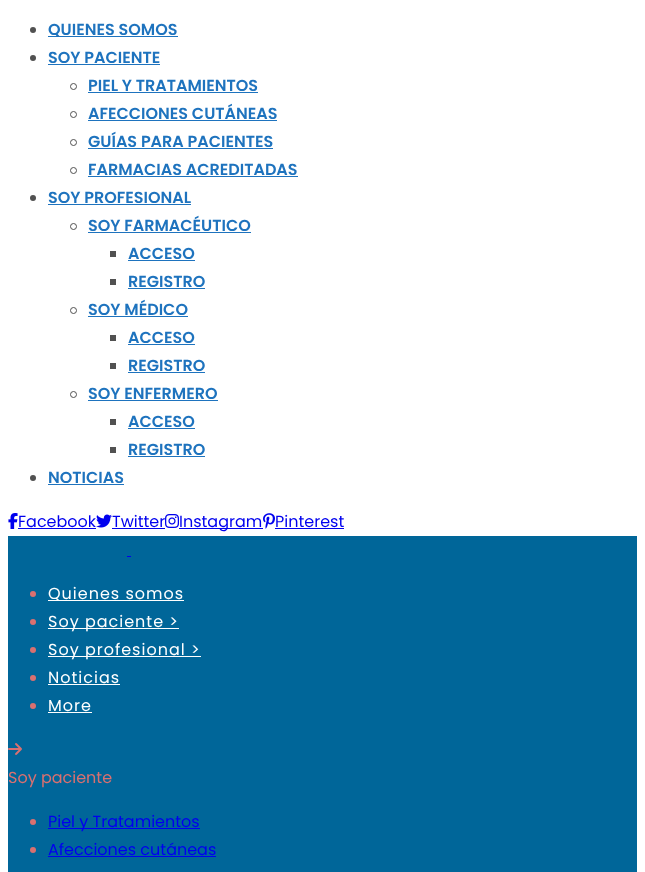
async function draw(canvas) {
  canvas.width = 645
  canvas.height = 872
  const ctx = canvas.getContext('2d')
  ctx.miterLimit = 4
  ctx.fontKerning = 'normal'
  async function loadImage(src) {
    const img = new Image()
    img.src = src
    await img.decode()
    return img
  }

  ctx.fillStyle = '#fff'
  ctx.fillRect(0, 0, 645, 872)
  ctx.fillStyle = '#515151'
  ctx.beginPath()
  ctx.arc(33, 30, 3, 0, 2 * Math.PI)
  ctx.fill()
  ctx.fillStyle = '#1e73be'
  ctx.fillRect(48, 36, 130, 1)
  ctx.font = '600 16px Poppins'
  ctx.fillText('QUIENES SOMOS', 48, 35)
  ctx.fillStyle = '#515151'
  ctx.beginPath()
  ctx.arc(33, 58, 3, 0, 2 * Math.PI)
  ctx.fill()
  ctx.fillStyle = '#1e73be'
  ctx.fillText('SOY PACIENTE', 48, 63)
  ctx.fillRect(48, 64, 112, 1)
  ctx.beginPath()
  ctx.arc(73.5, 86.5, 3, 0, 2 * Math.PI)
  ctx.strokeStyle = '#515151'
  ctx.stroke()
  ctx.fillText('PIEL Y TRATAMIENTOS', 88, 91)
  ctx.fillRect(88, 92, 170, 1)
  ctx.beginPath()
  ctx.arc(73.5, 114.5, 3, 0, 2 * Math.PI)
  ctx.stroke()
  ctx.fillText('AFECCIONES CUTÁNEAS', 88, 119)
  ctx.fillRect(88, 120, 189, 1)
  ctx.beginPath()
  ctx.arc(73.5, 142.5, 3, 0, 2 * Math.PI)
  ctx.stroke()
  ctx.fillText('GUÍAS PARA PACIENTES', 88, 147)
  ctx.fillRect(88, 148, 185, 1)
  ctx.beginPath()
  ctx.arc(73.5, 170.5, 3, 0, 2 * Math.PI)
  ctx.stroke()
  ctx.fillText('FARMACIAS ACREDITADAS', 88, 175)
  ctx.fillRect(88, 176, 210, 1)
  ctx.fillStyle = '#515151'
  ctx.beginPath()
  ctx.arc(33, 198, 3, 0, 2 * Math.PI)
  ctx.fill()
  ctx.fillStyle = '#1e73be'
  ctx.fillText('SOY PROFESIONAL', 48, 203)
  ctx.fillRect(48, 204, 143, 1)
  ctx.beginPath()
  ctx.arc(73.5, 226.5, 3, 0, 2 * Math.PI)
  ctx.stroke()
  ctx.fillText('SOY FARMACÉUTICO', 88, 231)
  ctx.fillRect(88, 232, 163, 1)
  ctx.fillStyle = '#515151'
  ctx.fillRect(110, 251, 6, 6)
  ctx.fillStyle = '#1e73be'
  ctx.fillText('ACCESO', 128, 259)
  ctx.fillRect(128, 260, 67, 1)
  ctx.fillStyle = '#515151'
  ctx.fillRect(110, 279, 6, 6)
  ctx.fillStyle = '#1e73be'
  ctx.fillText('REGISTRO', 128, 287)
  ctx.fillRect(128, 288, 77, 1)
  ctx.beginPath()
  ctx.arc(73.5, 310.5, 3, 0, 2 * Math.PI)
  ctx.stroke()
  ctx.fillText('SOY MÉDICO', 88, 315)
  ctx.fillRect(88, 316, 100, 1)
  ctx.fillStyle = '#515151'
  ctx.fillRect(110, 335, 6, 6)
  ctx.fillStyle = '#1e73be'
  ctx.fillText('ACCESO', 128, 343)
  ctx.fillRect(128, 344, 67, 1)
  ctx.fillStyle = '#515151'
  ctx.fillRect(110, 363, 6, 6)
  ctx.fillStyle = '#1e73be'
  ctx.fillText('REGISTRO', 128, 371)
  ctx.fillRect(128, 372, 77, 1)
  ctx.beginPath()
  ctx.arc(73.5, 394.5, 3, 0, 2 * Math.PI)
  ctx.stroke()
  ctx.fillText('SOY ENFERMERO', 88, 399)
  ctx.fillRect(88, 400, 130, 1)
  ctx.fillStyle = '#515151'
  ctx.fillRect(110, 419, 6, 6)
  ctx.fillStyle = '#1e73be'
  ctx.fillText('ACCESO', 128, 427)
  ctx.fillRect(128, 428, 67, 1)
  ctx.fillStyle = '#515151'
  ctx.fillRect(110, 447, 6, 6)
  ctx.fillStyle = '#1e73be'
  ctx.fillText('REGISTRO', 128, 455)
  ctx.fillRect(128, 456, 77, 1)
  ctx.fillStyle = '#515151'
  ctx.beginPath()
  ctx.arc(33, 478, 3, 0, 2 * Math.PI)
  ctx.fill()
  ctx.fillStyle = '#1e73be'
  ctx.fillText('NOTICIAS', 48, 483)
  ctx.fillRect(48, 484, 76, 1)
  ctx.drawImage(await loadImage('image0.png'), 8, 513, 10, 16)
  ctx.font = '16px Poppins'
  ctx.fillStyle = '#00e'
  ctx.fillText('Facebook', 18, 527)
  ctx.fillRect(18, 528, 78, 1)
  ctx.drawImage(await loadImage('image1.png'), 96, 514, 16, 14)
  ctx.fillText('Twitter', 112, 527)
  ctx.fillRect(112, 528, 53, 1)
  ctx.drawImage(await loadImage('image2.png'), 165, 514, 14, 14)
  ctx.fillRect(179, 528, 84, 1)
  ctx.fillText('Instagram', 179, 527)
  ctx.drawImage(await loadImage('image3.png'), 263, 513, 12, 16)
  ctx.fillText('Pinterest', 275, 527)
  ctx.fillRect(275, 528, 69, 1)
  ctx.fillStyle = '#069'
  ctx.fillRect(8, 536, 629, 336)
  ctx.fillStyle = '#00e'
  ctx.fillRect(127, 556, 4, 1)
  ctx.fillStyle = '#d97070'
  ctx.beginPath()
  ctx.arc(33, 594, 3, 0, 2 * Math.PI)
  ctx.fill()
  ctx.fillStyle = '#fff'
  ctx.fillRect(48, 600, 136, 1)
  ctx.letterSpacing = '1px'
  ctx.fillText('Quienes somos', 48, 599)
  ctx.fillStyle = '#d97070'
  ctx.beginPath()
  ctx.arc(33, 622, 3, 0, 2 * Math.PI)
  ctx.fill()
  ctx.fillStyle = '#fff'
  ctx.fillRect(48, 628, 131, 1)
  ctx.fillText('Soy paciente >', 48, 627)
  ctx.fillStyle = '#d97070'
  ctx.beginPath()
  ctx.arc(33, 650, 3, 0, 2 * Math.PI)
  ctx.fill()
  ctx.fillStyle = '#fff'
  ctx.fillRect(48, 656, 153, 1)
  ctx.fillText('Soy profesional >', 48, 655)
  ctx.fillStyle = '#d97070'
  ctx.beginPath()
  ctx.arc(33, 678, 3, 0, 2 * Math.PI)
  ctx.fill()
  ctx.fillStyle = '#fff'
  ctx.fillText('Noticias', 48, 683)
  ctx.fillRect(48, 684, 72, 1)
  ctx.fillStyle = '#d97070'
  ctx.beginPath()
  ctx.arc(33, 706, 3, 0, 2 * Math.PI)
  ctx.fill()
  ctx.fillStyle = '#fff'
  ctx.fillText('More', 48, 711)
  ctx.fillRect(48, 712, 44, 1)
  ctx.drawImage(await loadImage('image4.png'), 8, 743, 14, 12)
  ctx.letterSpacing = '0px'
  ctx.fillStyle = '#d97070'
  ctx.fillText('Soy paciente', 8, 783)
  ctx.beginPath()
  ctx.arc(33, 822, 3, 0, 2 * Math.PI)
  ctx.fill()
  ctx.fillStyle = '#00e'
  ctx.fillRect(48, 828, 152, 1)
  ctx.fillText('Piel y Tratamientos', 48, 827)
  ctx.fillStyle = '#d97070'
  ctx.beginPath()
  ctx.arc(33, 850, 3, 0, 2 * Math.PI)
  ctx.fill()
  ctx.fillStyle = '#00e'
  ctx.fillText('Afecciones cutáneas', 48, 855)
  ctx.fillRect(48, 856, 168, 1)
}

draw(document.querySelector('canvas'))
